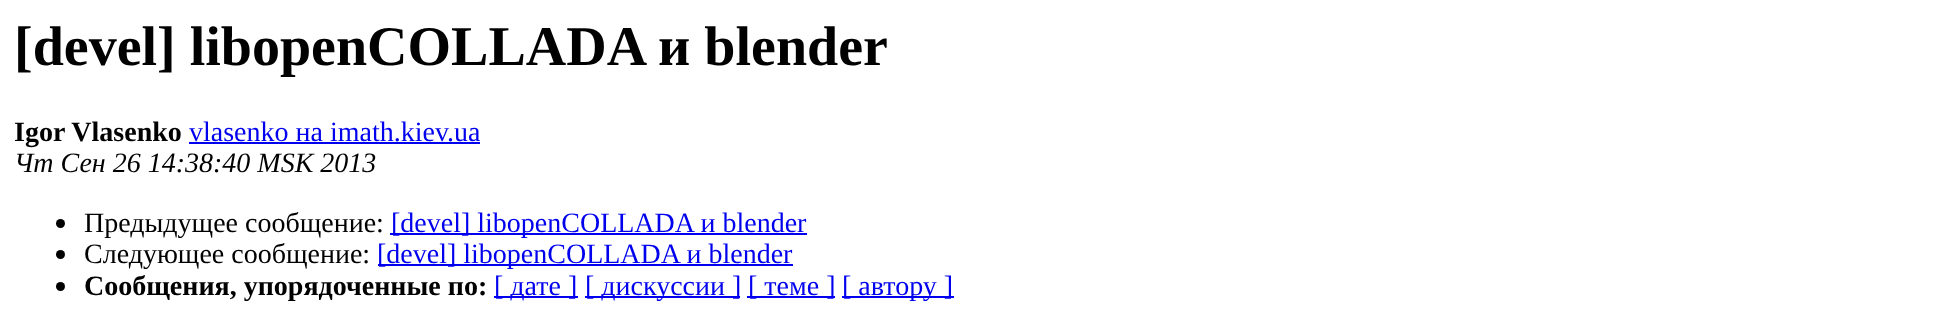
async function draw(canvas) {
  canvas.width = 1942
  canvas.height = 324
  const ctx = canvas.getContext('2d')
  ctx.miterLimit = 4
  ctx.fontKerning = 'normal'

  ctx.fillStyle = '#fff'
  ctx.fillRect(0, 0, 1942, 324)
  ctx.font = 'bold 56px Liberation Serif'
  ctx.fillStyle = '#000'
  ctx.fillText('[devel] libopenCOLLADA и blender', 14, 65)
  ctx.font = 'bold 28px Liberation Serif'
  ctx.fillText('Igor Vlasenko', 14, 141)
  ctx.font = '28px Liberation Serif'
  ctx.fillStyle = '#00e'
  ctx.fillText('vlasenko на imath.kiev.ua', 189, 141)
  ctx.fillRect(189, 142, 291, 2)
  ctx.font = 'italic 28px Liberation Serif'
  ctx.fillStyle = '#000'
  ctx.fillText('Чт Сен 26 14:38:40 MSK 2013', 14, 172)
  ctx.beginPath()
  ctx.arc(60.5, 223.5, 4.5, 0, 2 * Math.PI)
  ctx.fill()
  ctx.font = '28px Liberation Serif'
  ctx.fillText('Предыдущее сообщение:', 84, 232)
  ctx.fillStyle = '#00e'
  ctx.fillRect(390, 233, 417, 2)
  ctx.fillText('[devel] libopenCOLLADA и blender', 391, 232)
  ctx.fillStyle = '#000'
  ctx.beginPath()
  ctx.arc(60.5, 254.5, 4.5, 0, 2 * Math.PI)
  ctx.fill()
  ctx.fillText('Следующее сообщение:', 84, 263)
  ctx.fillStyle = '#00e'
  ctx.fillRect(378, 264, 415, 2)
  ctx.fillText('[devel] libopenCOLLADA и blender', 377, 263)
  ctx.fillStyle = '#000'
  ctx.beginPath()
  ctx.arc(60.5, 286.5, 4.5, 0, 2 * Math.PI)
  ctx.fill()
  ctx.font = 'bold 28px Liberation Serif'
  ctx.fillText('Сообщения, упорядоченные по:', 84, 295)
  ctx.fillStyle = '#00e'
  ctx.fillRect(494, 296, 84, 2)
  ctx.font = '28px Liberation Serif'
  ctx.fillText('[ дате ]', 494, 295)
  ctx.fillRect(585, 296, 155, 2)
  ctx.fillText('[ дискуссии ]', 585, 295)
  ctx.fillRect(747, 296, 88, 2)
  ctx.fillText('[ теме ]', 748, 295)
  ctx.fillRect(842, 296, 112, 2)
  ctx.fillText('[ автору ]', 842, 295)
}

draw(document.querySelector('canvas'))
